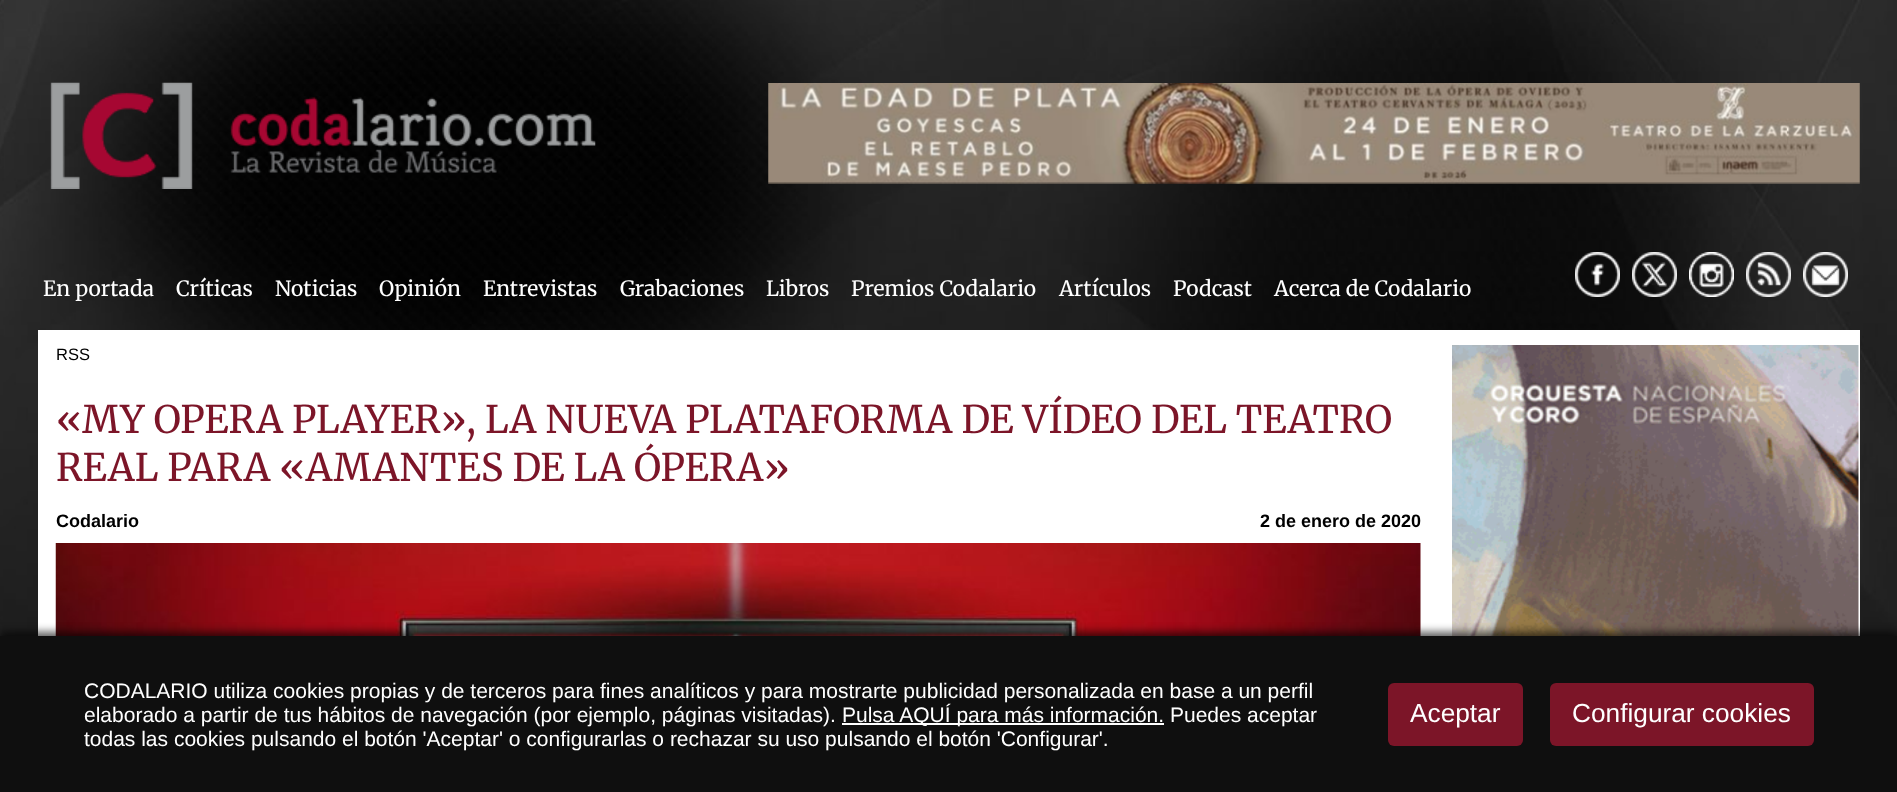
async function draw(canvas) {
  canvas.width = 1897
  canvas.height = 792
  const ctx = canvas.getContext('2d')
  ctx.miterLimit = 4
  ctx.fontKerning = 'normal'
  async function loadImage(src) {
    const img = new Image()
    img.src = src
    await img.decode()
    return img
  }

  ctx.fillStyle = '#fff'
  ctx.fillRect(0, 0, 1897, 792)
  ctx.drawImage(await loadImage('image0.png'), 0, 0, 1897, 636)
  ctx.drawImage(await loadImage('image1.png'), 50, 82, 546, 107)
  ctx.drawImage(await loadImage('image2.png'), 768, 83, 1092, 101)
  ctx.font = '300 21px Merriweather'
  ctx.fillText('En portada', 43, 296)
  ctx.fillText('Críticas', 176, 296)
  ctx.fillText('Noticias', 275, 296)
  ctx.fillText('Opinión', 379, 296)
  ctx.fillText('Entrevistas', 483, 296)
  ctx.fillText('Grabaciones', 620, 296)
  ctx.fillText('Libros', 766, 296)
  ctx.fillText('Premios Codalario', 851, 296)
  ctx.fillText('Artículos', 1059, 296)
  ctx.fillText('Podcast', 1173, 296)
  ctx.fillText('Acerca de Codalario', 1274, 296)
  ctx.drawImage(await loadImage('image3.png'), 1575, 252, 45, 45)
  ctx.drawImage(await loadImage('image4.png'), 1632, 252, 45, 45)
  ctx.drawImage(await loadImage('image5.png'), 1689, 252, 45, 45)
  ctx.drawImage(await loadImage('image6.png'), 1746, 252, 45, 45)
  ctx.drawImage(await loadImage('image7.png'), 1803, 252, 45, 45)
  ctx.fillRect(38, 330, 1822, 306)
  ctx.font = '16.5px Liberation Sans'
  ctx.fillStyle = '#000'
  ctx.fillText('RSS', 56, 360)
  ctx.font = '300 38.1px Merriweather'
  ctx.fillStyle = '#7c1528'
  ctx.fillText('«MY OPERA PLAYER», LA NUEVA PLATAFORMA DE VÍDEO DEL TEATRO', 56, 433)
  ctx.fillText('REAL PARA «AMANTES DE LA ÓPERA»', 56, 481)
  ctx.font = 'bold 18px Liberation Sans'
  ctx.fillStyle = '#000'
  ctx.fillText('Codalario', 56, 527)
  ctx.fillText('2 de enero de 2020', 1260, 527)
  ctx.drawImage(await loadImage('image8.png'), 55, 543, 1366, 93)
  ctx.drawImage(await loadImage('image9.png'), 1452, 345, 407, 291)
  ctx.fillStyle = '#000000a6'
  ctx.filter = 'blur(4.5px)'
  ctx.beginPath()
  ctx.rect(0, 632, 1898, 156)
  ctx.fill()
  ctx.filter = 'none'
  ctx.fillStyle = '#0f0f0f'
  ctx.fillRect(0, 636, 1897, 156)
  ctx.font = '21px Liberation Sans'
  ctx.fillStyle = '#fff'
  ctx.fillText('CODALARIO utiliza cookies propias y de terceros para fines analíticos y para mostrarte publicidad personalizada en base a un perfil', 84, 698)
  ctx.fillText('elaborado a partir de tus hábitos de navegación (por ejemplo, páginas visitadas).', 84, 722)
  ctx.fillRect(842, 723, 322, 2)
  ctx.fillText('Pulsa AQUÍ para más información. Puedes aceptar', 842, 722)
  ctx.fillText('todas las cookies pulsando el botón \'Aceptar\' o configurarlas o rechazar su uso pulsando el botón \'Configurar\'.', 84, 746)
  ctx.fillStyle = '#7c1528'
  ctx.beginPath()
  ctx.roundRect(1388, 683, 135, 63, 6)
  ctx.fill()
  ctx.font = '26.25px Liberation Sans'
  ctx.fillStyle = '#fff'
  ctx.fillText('Aceptar', 1410, 722)
  ctx.fillStyle = '#7c1528'
  ctx.beginPath()
  ctx.roundRect(1550, 683, 264, 63, 6)
  ctx.fill()
  ctx.fillStyle = '#fff'
  ctx.fillText('Configurar cookies', 1572, 722)
}

draw(document.querySelector('canvas'))
